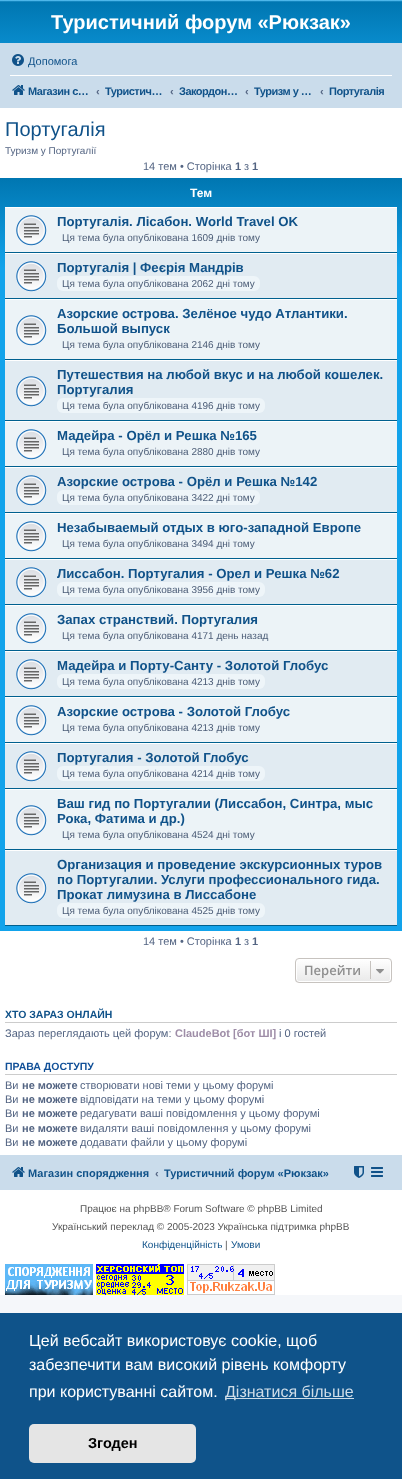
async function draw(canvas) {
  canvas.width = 402
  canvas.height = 1479
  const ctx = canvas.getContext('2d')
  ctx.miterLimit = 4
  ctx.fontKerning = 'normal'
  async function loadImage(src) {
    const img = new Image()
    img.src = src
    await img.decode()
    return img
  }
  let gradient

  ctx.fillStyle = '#f5f7fa'
  ctx.fillRect(0, 0, 402, 1479)
  ctx.fillStyle = '#fff'
  ctx.fillRect(0, 108, 402, 1187)
  gradient = ctx.createLinearGradient(201, 0, 201, 92)
  gradient.addColorStop(0, '#6aceff')
  gradient.addColorStop(0.02, '#0076b1')
  gradient.addColorStop(1, '#12a3eb')
  ctx.fillStyle = gradient
  ctx.fillRect(0, 0, 402, 43)
  ctx.font = 'bold 20px Liberation Sans'
  ctx.fillStyle = '#fff'
  ctx.fillText('Туристичний форум «Рюкзак»', 51, 29)
  ctx.fillStyle = '#cadceb'
  ctx.fillRect(0, 43, 402, 65)
  ctx.drawImage(await loadImage('image0.png'), 12, 54, 12, 12)
  ctx.font = '11px Liberation Sans'
  ctx.fillStyle = '#105289'
  ctx.fillText('Допомога', 28, 65)
  ctx.fillStyle = '#fff'
  ctx.fillRect(10, 75, 382, 1)
  ctx.drawImage(await loadImage('image1.png'), 12, 85, 13, 10)
  ctx.letterSpacing = '-0.5px'
  ctx.font = 'bold 11px Liberation Sans'
  ctx.fillStyle = '#105289'
  ctx.fillText('Магазин с…', 28, 95)
  ctx.letterSpacing = '0px'
  ctx.fillStyle = '#536482'
  ctx.fillText('‹', 96, 95)
  ctx.letterSpacing = '-0.5px'
  ctx.fillStyle = '#105289'
  ctx.fillText('Туристич…', 105, 95)
  ctx.letterSpacing = '0px'
  ctx.fillStyle = '#536482'
  ctx.fillText('‹', 170, 95)
  ctx.letterSpacing = '-0.5px'
  ctx.fillStyle = '#105289'
  ctx.fillText('Закордон…', 179, 95)
  ctx.letterSpacing = '0px'
  ctx.fillStyle = '#536482'
  ctx.fillText('‹', 245, 95)
  ctx.letterSpacing = '-0.5px'
  ctx.fillStyle = '#105289'
  ctx.fillText('Туризм у …', 254, 95)
  ctx.letterSpacing = '0px'
  ctx.fillStyle = '#536482'
  ctx.fillText('‹', 320, 95)
  ctx.letterSpacing = '-0.5px'
  ctx.fillStyle = '#105289'
  ctx.fillText('Португалія', 329, 95)
  ctx.letterSpacing = '0px'
  ctx.font = '20px Liberation Sans'
  ctx.fillText('Португалія', 5, 136)
  ctx.font = '10px Liberation Sans'
  ctx.fillStyle = '#536482'
  ctx.fillText('Туризм у Португалії', 5, 154)
  ctx.font = '11px Liberation Sans'
  ctx.fillText('14 тем • Сторінка', 143, 170)
  ctx.font = 'bold 11px Liberation Sans'
  ctx.fillText('1', 235, 170)
  ctx.font = '11px Liberation Sans'
  ctx.fillText('з', 244, 170)
  ctx.font = 'bold 11px Liberation Sans'
  ctx.fillText('1', 252, 170)
  gradient = ctx.createLinearGradient(201, 178, 201, 931)
  gradient.addColorStop(0, '#6aceff')
  gradient.addColorStop(0, '#0076b1')
  gradient.addColorStop(0.12, '#12a3eb')
  gradient.addColorStop(1, '#12a3eb')
  ctx.fillStyle = gradient
  ctx.fillRect(0, 178, 402, 753)
  ctx.font = 'bold 12px Liberation Sans'
  ctx.fillStyle = '#fff'
  ctx.fillText('Тем', 190, 197)
  ctx.fillStyle = '#ecf3f7'
  ctx.fillRect(5, 208, 392, 44)
  ctx.fillStyle = '#fff'
  ctx.fillRect(5, 207, 392, 1)
  ctx.fillStyle = '#00608f'
  ctx.fillRect(5, 252, 392, 1)
  ctx.drawImage(await loadImage('image2.png'), 16, 215, 31, 31)
  ctx.font = 'bold 13.2px Liberation Sans'
  ctx.fillStyle = '#105289'
  ctx.fillText('Португалія. Лісабон. World Travel OK', 57, 226)
  ctx.font = '10px Liberation Sans'
  ctx.fillStyle = '#4c5d77'
  ctx.fillText('Ця тема була опублікована 1609 днів тому', 62, 241)
  ctx.fillStyle = '#e1ebf2'
  ctx.fillRect(5, 254, 392, 44)
  ctx.fillStyle = '#fff'
  ctx.fillRect(5, 253, 392, 1)
  ctx.fillStyle = '#00608f'
  ctx.fillRect(5, 298, 392, 1)
  ctx.drawImage(await loadImage('image3.png'), 16, 261, 31, 31)
  ctx.font = 'bold 13.2px Liberation Sans'
  ctx.fillStyle = '#105289'
  ctx.fillText('Португалія | Феєрія Мандрів', 57, 272)
  ctx.fillStyle = '#eef5f9'
  ctx.beginPath()
  ctx.roundRect(57, 276, 203, 15, 6)
  ctx.fill()
  ctx.font = '10px Liberation Sans'
  ctx.fillStyle = '#4c5d77'
  ctx.fillText('Ця тема була опублікована 2062 дні тому', 62, 287)
  ctx.fillStyle = '#ecf3f7'
  ctx.fillRect(5, 300, 392, 59)
  ctx.fillStyle = '#fff'
  ctx.fillRect(5, 299, 392, 1)
  ctx.fillStyle = '#00608f'
  ctx.fillRect(5, 359, 392, 1)
  ctx.drawImage(await loadImage('image2.png'), 16, 315, 31, 31)
  ctx.font = 'bold 13.2px Liberation Sans'
  ctx.fillStyle = '#105289'
  ctx.fillText('Азорские острова. Зелёное чудо Атлантики.', 57, 318)
  ctx.fillText('Большой выпуск', 57, 333)
  ctx.font = '10px Liberation Sans'
  ctx.fillStyle = '#4c5d77'
  ctx.fillText('Ця тема була опублікована 2146 днів тому', 62, 348)
  ctx.fillStyle = '#e1ebf2'
  ctx.fillRect(5, 361, 392, 59)
  ctx.fillStyle = '#fff'
  ctx.fillRect(5, 360, 392, 1)
  ctx.fillStyle = '#00608f'
  ctx.fillRect(5, 420, 392, 1)
  ctx.drawImage(await loadImage('image3.png'), 16, 376, 31, 31)
  ctx.font = 'bold 13.2px Liberation Sans'
  ctx.fillStyle = '#105289'
  ctx.fillText('Путешествия на любой вкус и на любой кошелек.', 57, 379)
  ctx.fillText('Португалия', 57, 394)
  ctx.fillStyle = '#eef5f9'
  ctx.beginPath()
  ctx.roundRect(57, 398, 208, 15, 6)
  ctx.fill()
  ctx.font = '10px Liberation Sans'
  ctx.fillStyle = '#4c5d77'
  ctx.fillText('Ця тема була опублікована 4196 днів тому', 62, 409)
  ctx.fillStyle = '#ecf3f7'
  ctx.fillRect(5, 422, 392, 44)
  ctx.fillStyle = '#fff'
  ctx.fillRect(5, 421, 392, 1)
  ctx.fillStyle = '#00608f'
  ctx.fillRect(5, 466, 392, 1)
  ctx.drawImage(await loadImage('image2.png'), 16, 429, 31, 31)
  ctx.font = 'bold 13.2px Liberation Sans'
  ctx.fillStyle = '#105289'
  ctx.fillText('Мадейра - Орёл и Решка №165', 57, 440)
  ctx.font = '10px Liberation Sans'
  ctx.fillStyle = '#4c5d77'
  ctx.fillText('Ця тема була опублікована 2880 днів тому', 62, 455)
  ctx.fillStyle = '#e1ebf2'
  ctx.fillRect(5, 468, 392, 44)
  ctx.fillStyle = '#fff'
  ctx.fillRect(5, 467, 392, 1)
  ctx.fillStyle = '#00608f'
  ctx.fillRect(5, 512, 392, 1)
  ctx.drawImage(await loadImage('image3.png'), 16, 475, 31, 31)
  ctx.font = 'bold 13.2px Liberation Sans'
  ctx.fillStyle = '#105289'
  ctx.fillText('Азорские острова - Орёл и Решка №142', 57, 486)
  ctx.fillStyle = '#eef5f9'
  ctx.beginPath()
  ctx.roundRect(57, 490, 203, 15, 6)
  ctx.fill()
  ctx.font = '10px Liberation Sans'
  ctx.fillStyle = '#4c5d77'
  ctx.fillText('Ця тема була опублікована 3422 дні тому', 62, 501)
  ctx.fillStyle = '#ecf3f7'
  ctx.fillRect(5, 514, 392, 44)
  ctx.fillStyle = '#fff'
  ctx.fillRect(5, 513, 392, 1)
  ctx.fillStyle = '#00608f'
  ctx.fillRect(5, 558, 392, 1)
  ctx.drawImage(await loadImage('image2.png'), 16, 521, 31, 31)
  ctx.font = 'bold 13.2px Liberation Sans'
  ctx.fillStyle = '#105289'
  ctx.fillText('Незабываемый отдых в юго-западной Европе', 57, 532)
  ctx.font = '10px Liberation Sans'
  ctx.fillStyle = '#4c5d77'
  ctx.fillText('Ця тема була опублікована 3494 дні тому', 62, 547)
  ctx.fillStyle = '#e1ebf2'
  ctx.fillRect(5, 560, 392, 44)
  ctx.fillStyle = '#fff'
  ctx.fillRect(5, 559, 392, 1)
  ctx.fillStyle = '#00608f'
  ctx.fillRect(5, 604, 392, 1)
  ctx.drawImage(await loadImage('image3.png'), 16, 567, 31, 31)
  ctx.font = 'bold 13.2px Liberation Sans'
  ctx.fillStyle = '#105289'
  ctx.fillText('Лиссабон. Португалия - Орел и Решка №62', 57, 578)
  ctx.fillStyle = '#eef5f9'
  ctx.beginPath()
  ctx.roundRect(57, 582, 208, 15, 6)
  ctx.fill()
  ctx.font = '10px Liberation Sans'
  ctx.fillStyle = '#4c5d77'
  ctx.fillText('Ця тема була опублікована 3956 днів тому', 62, 593)
  ctx.fillStyle = '#ecf3f7'
  ctx.fillRect(5, 606, 392, 44)
  ctx.fillStyle = '#fff'
  ctx.fillRect(5, 605, 392, 1)
  ctx.fillStyle = '#00608f'
  ctx.fillRect(5, 650, 392, 1)
  ctx.drawImage(await loadImage('image2.png'), 16, 613, 31, 31)
  ctx.font = 'bold 13.2px Liberation Sans'
  ctx.fillStyle = '#105289'
  ctx.fillText('Запах странствий. Португалия', 57, 624)
  ctx.font = '10px Liberation Sans'
  ctx.fillStyle = '#4c5d77'
  ctx.fillText('Ця тема була опублікована 4171 день назад', 62, 639)
  ctx.fillStyle = '#e1ebf2'
  ctx.fillRect(5, 652, 392, 44)
  ctx.fillStyle = '#fff'
  ctx.fillRect(5, 651, 392, 1)
  ctx.fillStyle = '#00608f'
  ctx.fillRect(5, 696, 392, 1)
  ctx.drawImage(await loadImage('image3.png'), 16, 659, 31, 31)
  ctx.font = 'bold 13.2px Liberation Sans'
  ctx.fillStyle = '#105289'
  ctx.fillText('Мадейра и Порту-Санту - Золотой Глобус', 57, 670)
  ctx.fillStyle = '#eef5f9'
  ctx.beginPath()
  ctx.roundRect(57, 674, 208, 15, 6)
  ctx.fill()
  ctx.font = '10px Liberation Sans'
  ctx.fillStyle = '#4c5d77'
  ctx.fillText('Ця тема була опублікована 4213 днів тому', 62, 685)
  ctx.fillStyle = '#ecf3f7'
  ctx.fillRect(5, 698, 392, 44)
  ctx.fillStyle = '#fff'
  ctx.fillRect(5, 697, 392, 1)
  ctx.fillStyle = '#00608f'
  ctx.fillRect(5, 742, 392, 1)
  ctx.drawImage(await loadImage('image2.png'), 16, 705, 31, 31)
  ctx.font = 'bold 13.2px Liberation Sans'
  ctx.fillStyle = '#105289'
  ctx.fillText('Азорские острова - Золотой Глобус', 57, 716)
  ctx.font = '10px Liberation Sans'
  ctx.fillStyle = '#4c5d77'
  ctx.fillText('Ця тема була опублікована 4213 днів тому', 62, 731)
  ctx.fillStyle = '#e1ebf2'
  ctx.fillRect(5, 744, 392, 44)
  ctx.fillStyle = '#fff'
  ctx.fillRect(5, 743, 392, 1)
  ctx.fillStyle = '#00608f'
  ctx.fillRect(5, 788, 392, 1)
  ctx.drawImage(await loadImage('image3.png'), 16, 751, 31, 31)
  ctx.font = 'bold 13.2px Liberation Sans'
  ctx.fillStyle = '#105289'
  ctx.fillText('Португалия - Золотой Глобус', 57, 762)
  ctx.fillStyle = '#eef5f9'
  ctx.beginPath()
  ctx.roundRect(57, 766, 208, 15, 6)
  ctx.fill()
  ctx.font = '10px Liberation Sans'
  ctx.fillStyle = '#4c5d77'
  ctx.fillText('Ця тема була опублікована 4214 днів тому', 62, 777)
  ctx.fillStyle = '#ecf3f7'
  ctx.fillRect(5, 790, 392, 59)
  ctx.fillStyle = '#fff'
  ctx.fillRect(5, 789, 392, 1)
  ctx.fillStyle = '#00608f'
  ctx.fillRect(5, 849, 392, 1)
  ctx.drawImage(await loadImage('image2.png'), 16, 805, 31, 31)
  ctx.font = 'bold 13.2px Liberation Sans'
  ctx.fillStyle = '#105289'
  ctx.fillText('Ваш гид по Португалии (Лиссабон, Синтра, мыс', 57, 808)
  ctx.fillText('Рока, Фатима и др.)', 57, 823)
  ctx.font = '10px Liberation Sans'
  ctx.fillStyle = '#4c5d77'
  ctx.fillText('Ця тема була опублікована 4524 дні тому', 62, 838)
  ctx.fillStyle = '#e1ebf2'
  ctx.fillRect(5, 851, 392, 74)
  ctx.fillStyle = '#fff'
  ctx.fillRect(5, 850, 392, 1)
  ctx.fillStyle = '#00608f'
  ctx.fillRect(5, 925, 392, 1)
  ctx.drawImage(await loadImage('image3.png'), 16, 873, 31, 31)
  ctx.font = 'bold 13.2px Liberation Sans'
  ctx.fillStyle = '#105289'
  ctx.fillText('Организация и проведение экскурсионных туров', 57, 869)
  ctx.fillText('по Португалии. Услуги профессионального гида.', 57, 884)
  ctx.fillText('Прокат лимузина в Лиссабоне', 57, 899)
  ctx.fillStyle = '#eef5f9'
  ctx.beginPath()
  ctx.roundRect(57, 903, 208, 15, 6)
  ctx.fill()
  ctx.font = '10px Liberation Sans'
  ctx.fillStyle = '#4c5d77'
  ctx.fillText('Ця тема була опублікована 4525 днів тому', 62, 914)
  ctx.font = '11px Liberation Sans'
  ctx.fillStyle = '#536482'
  ctx.fillText('14 тем • Сторінка', 143, 945)
  ctx.font = 'bold 11px Liberation Sans'
  ctx.fillText('1', 235, 945)
  ctx.font = '11px Liberation Sans'
  ctx.fillText('з', 244, 945)
  ctx.font = 'bold 11px Liberation Sans'
  ctx.fillText('1', 252, 945)
  ctx.save()
  ctx.beginPath()
  ctx.roundRect(295, 958, 97, 25, 4)
  ctx.clip()
  gradient = ctx.createLinearGradient(344, 959, 344, 982)
  gradient.addColorStop(0, '#fff')
  gradient.addColorStop(1, '#e9e9e9')
  ctx.fillStyle = gradient
  ctx.fillRect(295, 959, 97, 23)
  ctx.restore()
  ctx.beginPath()
  ctx.roundRect(296.5, 959.5, 94, 22, 2.5)
  ctx.strokeStyle = '#fff'
  ctx.stroke()
  ctx.beginPath()
  ctx.roundRect(295.5, 958.5, 96, 24, 3.5)
  ctx.strokeStyle = '#c7c3bf'
  ctx.stroke()
  ctx.font = '600 13px Open Sans'
  ctx.fillStyle = '#8f8f8f'
  ctx.fillText('Перейти', 304, 975)
  ctx.fillStyle = '#c7c3bf'
  ctx.fillRect(370, 961, 1, 18)
  ctx.drawImage(await loadImage('image4.png'), 376, 969, 8, 5)
  ctx.fillStyle = '#ccc'
  ctx.fillRect(5, 1022, 392, 1)
  ctx.font = 'bold 10.5px Liberation Sans'
  ctx.fillStyle = '#105289'
  ctx.fillText('ХТО ЗАРАЗ ОНЛАЙН', 5, 1018)
  ctx.font = '11px Liberation Sans'
  ctx.fillStyle = '#536482'
  ctx.fillText('Зараз переглядають цей форум:', 5, 1037)
  ctx.font = 'bold 11px Liberation Sans'
  ctx.fillStyle = '#9e8da7'
  ctx.fillText('ClaudeBot [бот ШІ]', 175, 1037)
  ctx.font = '11px Liberation Sans'
  ctx.fillStyle = '#536482'
  ctx.fillText('і 0 гостей', 279, 1037)
  ctx.fillStyle = '#ccc'
  ctx.fillRect(5, 1074, 392, 1)
  ctx.font = 'bold 10.5px Liberation Sans'
  ctx.fillStyle = '#115098'
  ctx.fillText('ПРАВА ДОСТУПУ', 5, 1070)
  ctx.font = '11px Liberation Sans'
  ctx.fillStyle = '#536482'
  ctx.fillText('Ви', 5, 1089)
  ctx.font = 'bold 11px Liberation Sans'
  ctx.fillText('не можете', 22, 1089)
  ctx.font = '11px Liberation Sans'
  ctx.fillText('створювати нові теми у цьому форумі', 80, 1089)
  ctx.fillText('Ви', 5, 1103)
  ctx.font = 'bold 11px Liberation Sans'
  ctx.fillText('не можете', 22, 1103)
  ctx.font = '11px Liberation Sans'
  ctx.fillText('відповідати на теми у цьому форумі', 80, 1103)
  ctx.fillText('Ви', 5, 1117)
  ctx.font = 'bold 11px Liberation Sans'
  ctx.fillText('не можете', 22, 1117)
  ctx.font = '11px Liberation Sans'
  ctx.fillText('редагувати ваші повідомлення у цьому форумі', 80, 1117)
  ctx.fillText('Ви', 5, 1132)
  ctx.font = 'bold 11px Liberation Sans'
  ctx.fillText('не можете', 22, 1132)
  ctx.font = '11px Liberation Sans'
  ctx.fillText('видаляти ваші повідомлення у цьому форумі', 80, 1132)
  ctx.fillText('Ви', 5, 1146)
  ctx.font = 'bold 11px Liberation Sans'
  ctx.fillText('не можете', 22, 1146)
  ctx.font = '11px Liberation Sans'
  ctx.fillText('додавати файли у цьому форумі', 80, 1146)
  ctx.fillStyle = '#cadceb'
  ctx.fillRect(0, 1155, 402, 35)
  ctx.drawImage(await loadImage('image1.png'), 12, 1167, 13, 10)
  ctx.font = 'bold 11px Liberation Sans'
  ctx.fillStyle = '#105289'
  ctx.fillText('Магазин спорядження', 28, 1177)
  ctx.fillStyle = '#536482'
  ctx.fillText('‹', 155, 1177)
  ctx.fillStyle = '#105289'
  ctx.fillText('Туристичний форум «Рюкзак»', 164, 1177)
  ctx.drawImage(await loadImage('image5.png'), 354, 1166, 10, 12)
  ctx.drawImage(await loadImage('image6.png'), 371, 1167, 12, 10)
  ctx.font = '10px Liberation Sans'
  ctx.fillStyle = '#555'
  ctx.fillText('Працює на phpBB® Forum Software © phpBB Limited', 80, 1212)
  ctx.fillText('Український переклад © 2005-2023 Українська підтримка phpBB', 52, 1230)
  ctx.fillStyle = '#105289'
  ctx.fillText('Конфіденційність', 142, 1248)
  ctx.fillStyle = '#555'
  ctx.fillText('|', 225, 1248)
  ctx.fillStyle = '#105289'
  ctx.fillText('Умови', 231, 1248)
  ctx.drawImage(await loadImage('image7.png'), 5, 1264, 88, 31)
  ctx.drawImage(await loadImage('image8.png'), 96, 1264, 88, 31)
  ctx.drawImage(await loadImage('image9.png'), 187, 1264, 88, 31)
  ctx.fillStyle = '#0f538a'
  ctx.fillRect(0, 1313, 402, 166)
  ctx.font = '16px Liberation Sans'
  ctx.fillStyle = '#fff'
  ctx.fillText('Цей вебсайт використовує cookie, щоб', 29, 1346)
  ctx.fillText('забезпечити вам високий рівень комфорту', 29, 1370)
  ctx.fillText('при користуванні сайтом.', 29, 1397)
  ctx.fillStyle = '#cfdde8'
  ctx.fillRect(225, 1398, 129, 1)
  ctx.fillText('Дізнатися більше', 225, 1397)
  ctx.fillStyle = '#e5e5e5'
  ctx.beginPath()
  ctx.roundRect(29, 1424, 167, 39, 5)
  ctx.fill()
  ctx.font = 'bold 14.5px Liberation Sans'
  ctx.fillStyle = '#000'
  ctx.fillText('Згоден', 88, 1448)
}

draw(document.querySelector('canvas'))
